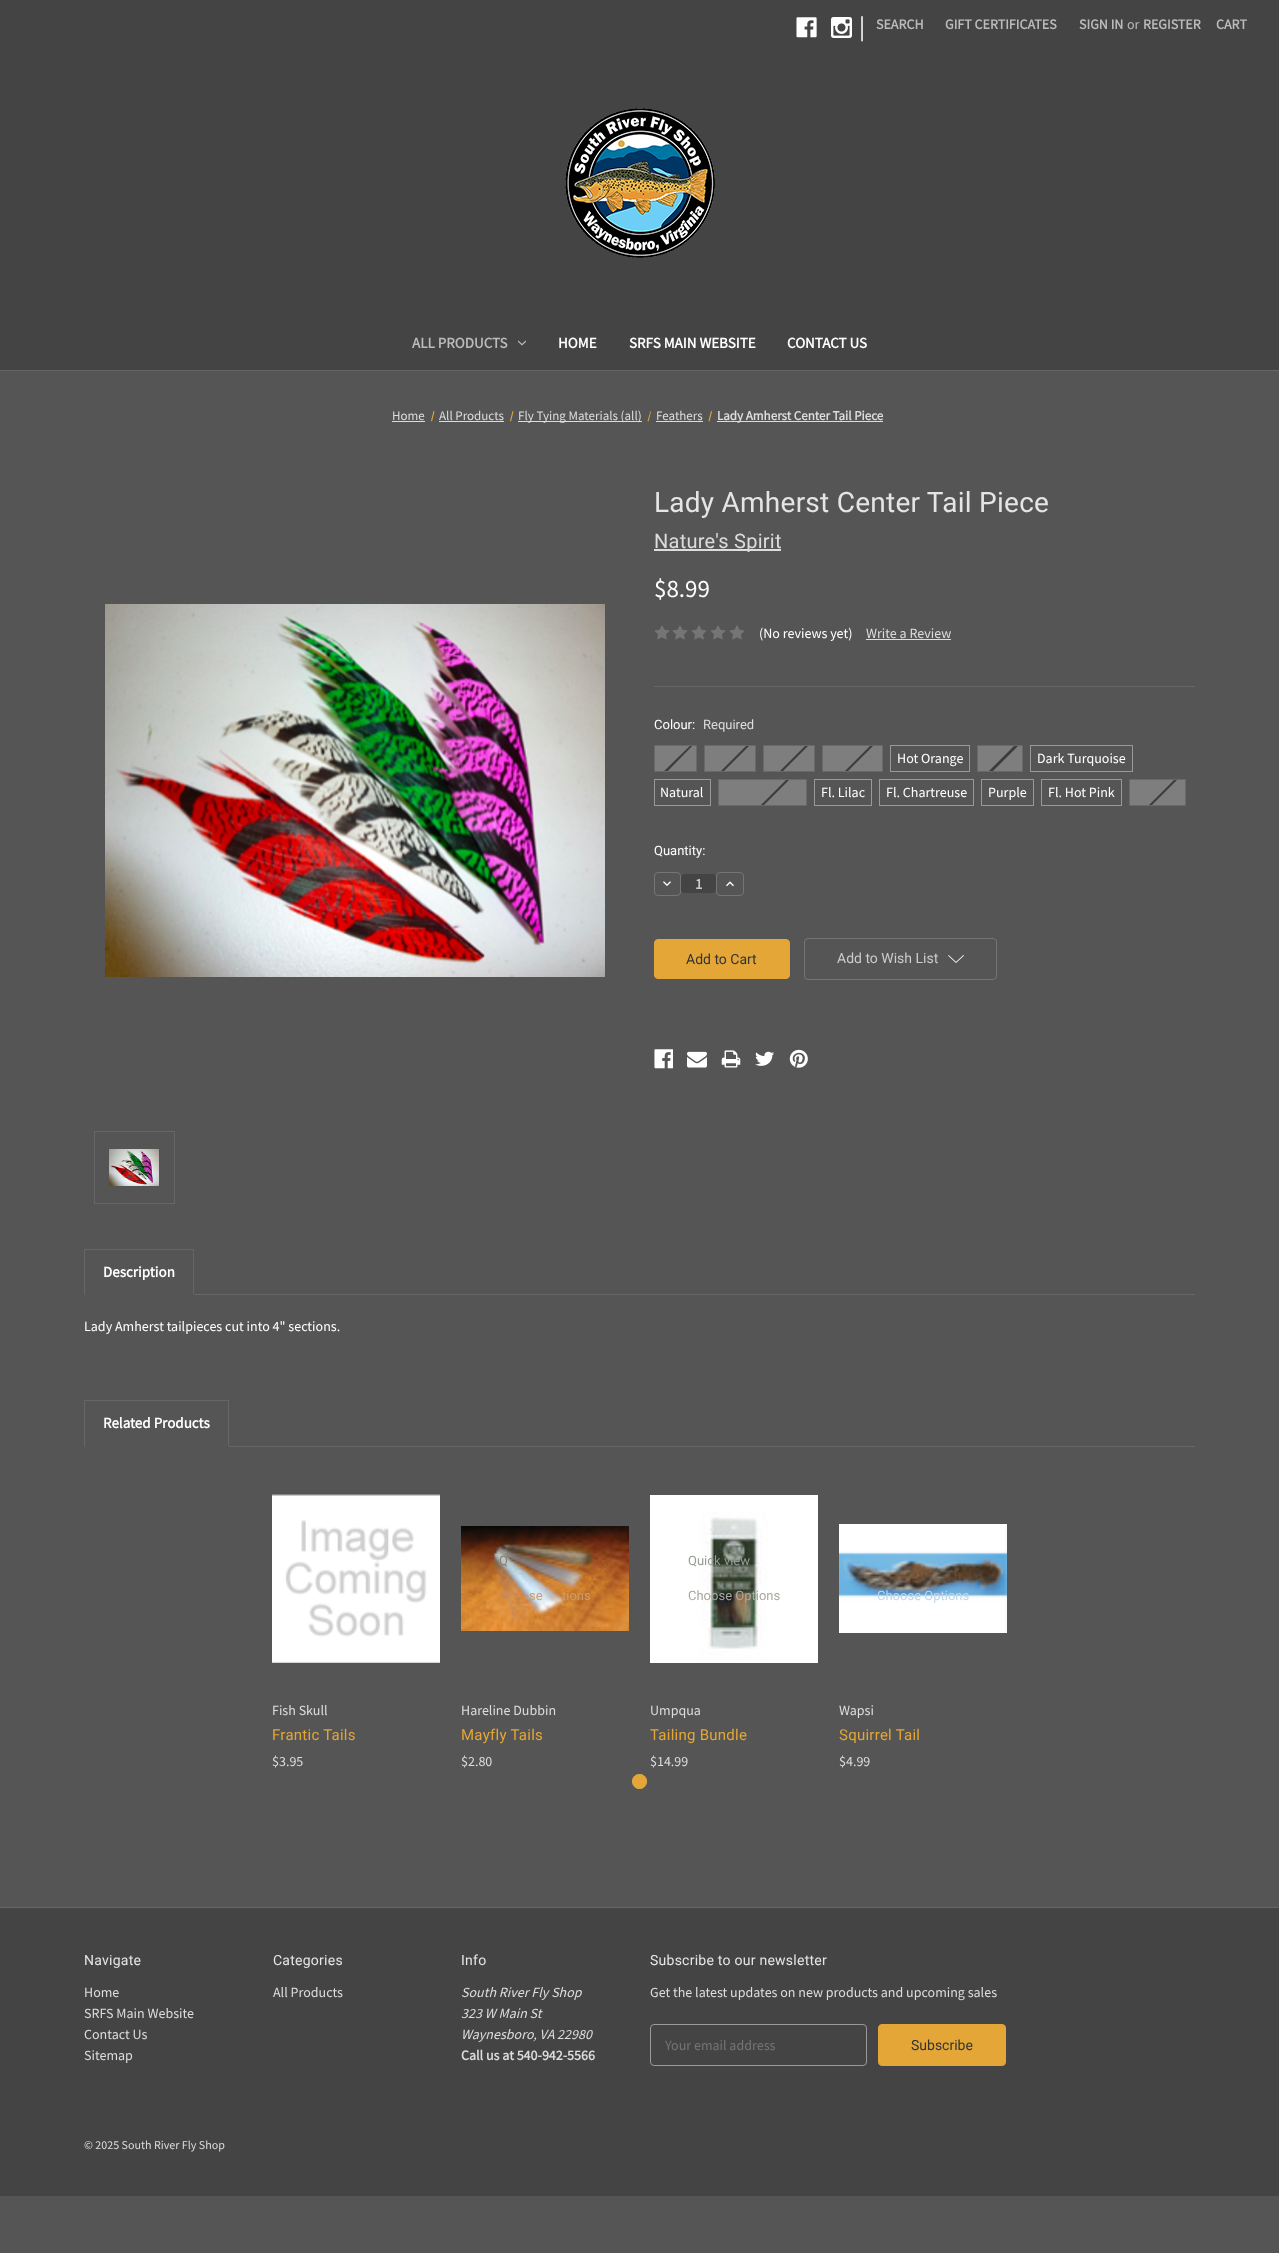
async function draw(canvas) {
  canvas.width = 1279
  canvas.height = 2253
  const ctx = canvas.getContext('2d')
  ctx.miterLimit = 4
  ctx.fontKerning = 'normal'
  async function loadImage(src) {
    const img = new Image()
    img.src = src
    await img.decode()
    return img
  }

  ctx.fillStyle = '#555'
  ctx.fillRect(0, 0, 1279, 2253)
  ctx.fillStyle = '#444'
  ctx.fillRect(0, 0, 1279, 370)
  ctx.fillStyle = '#666'
  ctx.fillRect(0, 370, 1279, 1)
  ctx.drawImage(await loadImage('image0.png'), 796, 17, 21, 21)
  ctx.drawImage(await loadImage('image1.png'), 831, 17, 21, 21)
  ctx.font = '25px Source Sans Pro'
  ctx.fillStyle = '#fff'
  ctx.fillText('|', 859, 35)
  ctx.font = 'bold 14px Source Sans Pro'
  ctx.fillStyle = '#bbb'
  ctx.fillText('SEARCH', 876, 29)
  ctx.fillText('GIFT CERTIFICATES', 945, 29)
  ctx.fillText('SIGN IN', 1079, 29)
  ctx.font = '14px Source Sans Pro'
  ctx.fillText('or', 1127, 29)
  ctx.font = 'bold 14px Source Sans Pro'
  ctx.fillText('REGISTER', 1143, 29)
  ctx.fillText('CART', 1216, 29)
  ctx.drawImage(await loadImage('image2.png'), 565, 108, 150, 150)
  ctx.font = 'bold 15px Source Sans Pro'
  ctx.fillText('ALL PRODUCTS', 412, 348)
  ctx.drawImage(await loadImage('image3.png'), 518, 340, 8, 6)
  ctx.fillStyle = '#fff'
  ctx.fillText('HOME', 558, 348)
  ctx.fillText('SRFS MAIN WEBSITE', 629, 348)
  ctx.fillText('CONTACT US', 787, 348)
  ctx.font = '13px Source Sans Pro'
  ctx.fillStyle = '#ddd'
  ctx.fillText('Home', 392, 420)
  ctx.fillRect(392, 421, 33, 1)
  ctx.fillStyle = '#e4a737'
  ctx.beginPath()
  ctx.moveTo(433.5, 411)
  ctx.lineTo(434.5, 411.5)
  ctx.lineTo(432, 421.5)
  ctx.lineTo(431, 421)
  ctx.closePath()
  ctx.fill()
  ctx.fillStyle = '#ddd'
  ctx.fillText('All Products', 439, 420)
  ctx.fillRect(439, 421, 65, 1)
  ctx.fillStyle = '#e4a737'
  ctx.beginPath()
  ctx.moveTo(512.5, 411)
  ctx.lineTo(513.5, 411.5)
  ctx.lineTo(511, 421.5)
  ctx.lineTo(510, 421)
  ctx.closePath()
  ctx.fill()
  ctx.fillStyle = '#ddd'
  ctx.fillRect(518, 421, 124, 1)
  ctx.fillText('Fly Tying Materials (all)', 518, 420)
  ctx.fillStyle = '#e4a737'
  ctx.beginPath()
  ctx.moveTo(650.5, 411)
  ctx.lineTo(651, 411.5)
  ctx.lineTo(648.5, 421.5)
  ctx.lineTo(647.5, 421)
  ctx.closePath()
  ctx.fill()
  ctx.fillStyle = '#ddd'
  ctx.fillText('Feathers', 656, 420)
  ctx.fillRect(656, 421, 47, 1)
  ctx.fillStyle = '#e4a737'
  ctx.beginPath()
  ctx.moveTo(711, 411)
  ctx.lineTo(712, 411.5)
  ctx.lineTo(709.5, 421.5)
  ctx.lineTo(708.5, 421)
  ctx.closePath()
  ctx.fill()
  ctx.fillStyle = '#ddd'
  ctx.fillRect(717, 421, 166, 1)
  ctx.font = 'bold 13px Source Sans Pro'
  ctx.fillText('Lady Amherst Center Tail Piece', 717, 420)
  ctx.fillStyle = '#666'
  ctx.fillRect(654, 686, 541, 1)
  ctx.letterSpacing = '0.25px'
  ctx.font = '28px Roboto'
  ctx.fillStyle = '#e5e5e5'
  ctx.fillText('Lady Amherst Center Tail Piece', 654, 512)
  ctx.fillStyle = '#ddd'
  ctx.fillRect(654, 549, 127, 2)
  ctx.font = '20px Roboto'
  ctx.fillText('Nature\'s Spirit', 654, 548)
  ctx.letterSpacing = '0px'
  ctx.font = '25px Source Sans Pro'
  ctx.fillStyle = '#fff'
  ctx.fillText('$8.99', 654, 597)
  ctx.drawImage(await loadImage('image4.png'), 654, 625, 16, 15)
  ctx.drawImage(await loadImage('image4.png'), 672, 625, 16, 15)
  ctx.drawImage(await loadImage('image4.png'), 691, 625, 16, 15)
  ctx.drawImage(await loadImage('image4.png'), 710, 625, 16, 15)
  ctx.drawImage(await loadImage('image4.png'), 729, 625, 16, 15)
  ctx.font = '14px Source Sans Pro'
  ctx.fillText('(No reviews yet)', 759, 638)
  ctx.fillStyle = '#ddd'
  ctx.fillText('Write a Review', 866, 638)
  ctx.fillRect(866, 639, 85, 1)
  ctx.drawImage(await loadImage('image5.png'), 105, 604, 500, 373)
  ctx.strokeStyle = '#666'
  ctx.strokeRect(94.5, 1131.5, 80, 72)
  ctx.drawImage(await loadImage('image6.png'), 109, 1149, 50, 37)
  ctx.font = '13px Roboto'
  ctx.fillStyle = '#fff'
  ctx.fillText('Colour:', 654, 729)
  ctx.fillStyle = '#ddd'
  ctx.fillText('Required', 703, 729)
  ctx.fillStyle = '#7e7e7e'
  ctx.beginPath()
  ctx.rect(654.5, 745.5, 42, 26)
  ctx.fill()
  ctx.strokeStyle = '#696969'
  ctx.stroke()
  ctx.save()
  ctx.beginPath()
  ctx.rect(655, 746, 41, 25)
  ctx.clip()
  ctx.fillStyle = '#3c3c3c'
  ctx.beginPath()
  ctx.moveTo(657, 778)
  ctx.lineTo(699, 737)
  ctx.lineTo(700, 738)
  ctx.lineTo(659, 780)
  ctx.closePath()
  ctx.fill()
  ctx.restore()
  ctx.beginPath()
  ctx.rect(704.5, 745.5, 51, 26)
  ctx.fill()
  ctx.stroke()
  ctx.save()
  ctx.beginPath()
  ctx.rect(705, 746, 50, 25)
  ctx.clip()
  ctx.fillStyle = '#3c3c3c'
  ctx.beginPath()
  ctx.moveTo(710, 782)
  ctx.lineTo(759, 733)
  ctx.lineTo(761, 734)
  ctx.lineTo(711, 784)
  ctx.closePath()
  ctx.fill()
  ctx.restore()
  ctx.beginPath()
  ctx.rect(763.5, 745.5, 51, 26)
  ctx.fill()
  ctx.stroke()
  ctx.save()
  ctx.beginPath()
  ctx.rect(764, 746, 50, 25)
  ctx.clip()
  ctx.fillStyle = '#3c3c3c'
  ctx.beginPath()
  ctx.moveTo(769, 782)
  ctx.lineTo(819, 732)
  ctx.lineTo(820, 734)
  ctx.lineTo(770, 784)
  ctx.closePath()
  ctx.fill()
  ctx.restore()
  ctx.beginPath()
  ctx.rect(822.5, 745.5, 60, 26)
  ctx.fill()
  ctx.stroke()
  ctx.save()
  ctx.beginPath()
  ctx.rect(823, 746, 59, 25)
  ctx.clip()
  ctx.fillStyle = '#3c3c3c'
  ctx.beginPath()
  ctx.moveTo(830, 786)
  ctx.lineTo(888, 728)
  ctx.lineTo(889, 730)
  ctx.lineTo(831, 788)
  ctx.closePath()
  ctx.fill()
  ctx.restore()
  ctx.strokeStyle = '#999'
  ctx.strokeRect(890.5, 745.5, 79, 26)
  ctx.font = '14px Source Sans Pro'
  ctx.fillStyle = '#fff'
  ctx.fillText('Hot Orange', 897, 763)
  ctx.fillStyle = '#7e7e7e'
  ctx.beginPath()
  ctx.rect(977.5, 745.5, 45, 26)
  ctx.fill()
  ctx.strokeStyle = '#696969'
  ctx.stroke()
  ctx.save()
  ctx.beginPath()
  ctx.rect(978, 746, 44, 25)
  ctx.clip()
  ctx.fillStyle = '#3c3c3c'
  ctx.beginPath()
  ctx.moveTo(981, 779)
  ctx.lineTo(1025, 735)
  ctx.lineTo(1027, 737)
  ctx.lineTo(983, 781)
  ctx.closePath()
  ctx.fill()
  ctx.restore()
  ctx.strokeStyle = '#999'
  ctx.strokeRect(1030.5, 745.5, 102, 26)
  ctx.fillStyle = '#fff'
  ctx.fillText('Dark Turquoise', 1037, 763)
  ctx.strokeRect(654.5, 779.5, 56, 26)
  ctx.fillText('Natural', 660, 797)
  ctx.fillStyle = '#7e7e7e'
  ctx.beginPath()
  ctx.rect(718.5, 779.5, 88, 26)
  ctx.fill()
  ctx.strokeStyle = '#696969'
  ctx.stroke()
  ctx.save()
  ctx.beginPath()
  ctx.rect(719, 780, 87, 25)
  ctx.clip()
  ctx.fillStyle = '#3c3c3c'
  ctx.beginPath()
  ctx.moveTo(731, 835)
  ctx.lineTo(818, 748)
  ctx.lineTo(820, 749)
  ctx.lineTo(733, 836)
  ctx.closePath()
  ctx.fill()
  ctx.restore()
  ctx.strokeStyle = '#999'
  ctx.strokeRect(814.5, 779.5, 57, 26)
  ctx.fillStyle = '#fff'
  ctx.fillText('Fl. Lilac', 821, 797)
  ctx.strokeRect(879.5, 779.5, 94, 26)
  ctx.fillText('Fl. Chartreuse', 886, 797)
  ctx.strokeRect(981.5, 779.5, 52, 26)
  ctx.fillText('Purple', 988, 797)
  ctx.strokeRect(1041.5, 779.5, 80, 26)
  ctx.fillText('Fl. Hot Pink', 1048, 797)
  ctx.fillStyle = '#7e7e7e'
  ctx.beginPath()
  ctx.rect(1129.5, 779.5, 56, 26)
  ctx.fill()
  ctx.strokeStyle = '#696969'
  ctx.stroke()
  ctx.save()
  ctx.beginPath()
  ctx.rect(1130, 780, 55, 25)
  ctx.clip()
  ctx.fillStyle = '#3c3c3c'
  ctx.beginPath()
  ctx.moveTo(1135, 819)
  ctx.lineTo(1190, 764)
  ctx.lineTo(1192, 765)
  ctx.lineTo(1137, 820)
  ctx.closePath()
  ctx.fill()
  ctx.restore()
  ctx.font = '13px Roboto'
  ctx.fillStyle = '#fff'
  ctx.fillText('Quantity:', 654, 855)
  ctx.beginPath()
  ctx.roundRect(654.5, 872.5, 26, 23, 3.5)
  ctx.strokeStyle = '#757575'
  ctx.stroke()
  ctx.drawImage(await loadImage('image7.png'), 663, 881, 8, 5)
  ctx.fillStyle = '#444'
  ctx.beginPath()
  ctx.roundRect(681, 874, 35, 19, 4)
  ctx.fill()
  ctx.font = 'bold 15px Source Sans Pro'
  ctx.fillStyle = '#ccc'
  ctx.fillText('1', 695, 889)
  ctx.beginPath()
  ctx.roundRect(716.5, 872.5, 27, 23, 3.5)
  ctx.stroke()
  ctx.drawImage(await loadImage('image8.png'), 726, 881, 8, 6)
  ctx.fillStyle = '#e4a737'
  ctx.beginPath()
  ctx.roundRect(654.5, 939.5, 135, 39, 3.5)
  ctx.fill()
  ctx.strokeStyle = '#e4a737'
  ctx.stroke()
  ctx.font = '14px Roboto'
  ctx.fillStyle = '#333'
  ctx.fillText('Add to Cart', 686, 964)
  ctx.beginPath()
  ctx.roundRect(804.5, 938.5, 192, 41, 3.5)
  ctx.strokeStyle = '#757575'
  ctx.stroke()
  ctx.fillStyle = '#ccc'
  ctx.fillText('Add to Wish List', 837, 963)
  ctx.drawImage(await loadImage('image9.png'), 948, 955, 16, 8)
  ctx.drawImage(await loadImage('image10.png'), 654, 1049, 19, 20)
  ctx.drawImage(await loadImage('image11.png'), 687, 1051, 20, 17)
  ctx.drawImage(await loadImage('image12.png'), 721, 1050, 20, 18)
  ctx.drawImage(await loadImage('image13.png'), 755, 1051, 20, 15)
  ctx.drawImage(await loadImage('image14.png'), 789, 1049, 19, 19)
  ctx.fillStyle = '#666'
  ctx.fillRect(194, 1294, 1001, 1)
  ctx.fillRect(84, 1249, 110, 1)
  ctx.fillRect(193, 1249, 1, 46)
  ctx.fillStyle = '#555'
  ctx.fillRect(193, 1294, 1, 1)
  ctx.fillStyle = '#666'
  ctx.fillRect(84, 1249, 1, 46)
  ctx.font = 'bold 15px Source Sans Pro'
  ctx.fillStyle = '#fff'
  ctx.fillText('Description', 103, 1277)
  ctx.font = '14px Source Sans Pro'
  ctx.fillText('Lady Amherst tailpieces cut into 4" sections.', 84, 1331)
  ctx.fillStyle = '#666'
  ctx.fillRect(229, 1446, 966, 1)
  ctx.fillRect(84, 1400, 145, 1)
  ctx.fillRect(228, 1400, 1, 47)
  ctx.fillStyle = '#555'
  ctx.fillRect(228, 1446, 1, 1)
  ctx.fillStyle = '#666'
  ctx.fillRect(84, 1400, 1, 47)
  ctx.font = 'bold 15px Source Sans Pro'
  ctx.fillStyle = '#fff'
  ctx.fillText('Related Products', 103, 1428)
  ctx.drawImage(await loadImage('image15.png'), 272, 1494, 168, 169)
  ctx.font = '14px Source Sans Pro'
  ctx.fillStyle = '#ddd'
  ctx.fillText('Fish Skull', 272, 1715)
  ctx.letterSpacing = '0.25px'
  ctx.font = '15px Roboto'
  ctx.fillStyle = '#e4a737'
  ctx.fillText('Frantic Tails', 272, 1740)
  ctx.letterSpacing = '0px'
  ctx.font = '14px Source Sans Pro'
  ctx.fillStyle = '#ddd'
  ctx.fillText('$3.95', 272, 1766)
  ctx.drawImage(await loadImage('image16.png'), 461, 1526, 168, 105)
  ctx.font = '13px Roboto'
  ctx.fillStyle = '#907b68'
  ctx.fillText('Q', 499, 1565)
  ctx.fillStyle = '#cc9c70'
  ctx.fillText('se', 529, 1600)
  ctx.fillText('tions', 562, 1600)
  ctx.font = '14px Source Sans Pro'
  ctx.fillStyle = '#ddd'
  ctx.fillText('Hareline Dubbin', 461, 1715)
  ctx.letterSpacing = '0.25px'
  ctx.font = '15px Roboto'
  ctx.fillStyle = '#e4a737'
  ctx.fillText('Mayfly Tails', 461, 1740)
  ctx.letterSpacing = '0px'
  ctx.font = '14px Source Sans Pro'
  ctx.fillStyle = '#ddd'
  ctx.fillText('$2.80', 461, 1766)
  ctx.drawImage(await loadImage('image17.png'), 650, 1495, 168, 168)
  ctx.font = '13px Roboto'
  ctx.fillStyle = '#969c94'
  ctx.fillText('Quick view', 688, 1565)
  ctx.fillStyle = '#a8a8a1'
  ctx.fillText('Choose Options', 688, 1600)
  ctx.font = '14px Source Sans Pro'
  ctx.fillStyle = '#ddd'
  ctx.fillText('Umpqua', 650, 1715)
  ctx.letterSpacing = '0.25px'
  ctx.font = '15px Roboto'
  ctx.fillStyle = '#e4a737'
  ctx.fillText('Tailing Bundle', 650, 1740)
  ctx.letterSpacing = '0px'
  ctx.font = '14px Source Sans Pro'
  ctx.fillStyle = '#ddd'
  ctx.fillText('$14.99', 650, 1766)
  ctx.drawImage(await loadImage('image18.png'), 839, 1524, 168, 109)
  ctx.font = '13px Roboto'
  ctx.fillStyle = '#bcd6eb'
  ctx.fillText('Choose Options', 877, 1600)
  ctx.font = '14px Source Sans Pro'
  ctx.fillStyle = '#ddd'
  ctx.fillText('Wapsi', 839, 1715)
  ctx.letterSpacing = '0.25px'
  ctx.font = '15px Roboto'
  ctx.fillStyle = '#e4a737'
  ctx.fillText('Squirrel Tail', 839, 1740)
  ctx.letterSpacing = '0px'
  ctx.font = '14px Source Sans Pro'
  ctx.fillStyle = '#ddd'
  ctx.fillText('$4.99', 839, 1766)
  ctx.beginPath()
  ctx.arc(639.5, 1781.5, 7, 0, 2 * Math.PI)
  ctx.strokeStyle = '#999'
  ctx.stroke()
  ctx.fillStyle = '#e4a737'
  ctx.beginPath()
  ctx.arc(639.5, 1781.5, 7.5, 0, 2 * Math.PI)
  ctx.fill()
  ctx.fillStyle = '#444'
  ctx.fillRect(0, 1908, 1279, 288)
  ctx.fillStyle = '#666'
  ctx.fillRect(0, 1907, 1279, 1)
  ctx.letterSpacing = '0.25px'
  ctx.font = '14px Roboto'
  ctx.fillStyle = '#e5e5e5'
  ctx.fillText('Navigate', 84, 1965)
  ctx.letterSpacing = '0px'
  ctx.font = '14px Source Sans Pro'
  ctx.fillStyle = '#ddd'
  ctx.fillText('Home', 84, 1997)
  ctx.fillText('SRFS Main Website', 84, 2018)
  ctx.fillText('Contact Us', 84, 2039)
  ctx.fillText('Sitemap', 84, 2060)
  ctx.letterSpacing = '0.25px'
  ctx.font = '14px Roboto'
  ctx.fillStyle = '#e5e5e5'
  ctx.fillText('Categories', 273, 1965)
  ctx.letterSpacing = '0px'
  ctx.font = '14px Source Sans Pro'
  ctx.fillStyle = '#ddd'
  ctx.fillText('All Products', 273, 1997)
  ctx.letterSpacing = '0.25px'
  ctx.font = '14px Roboto'
  ctx.fillStyle = '#e5e5e5'
  ctx.fillText('Info', 461, 1965)
  ctx.letterSpacing = '0px'
  ctx.font = 'italic 14px Source Sans Pro'
  ctx.fillStyle = '#ddd'
  ctx.fillText('South River Fly Shop', 461, 1997)
  ctx.fillText('323 W Main St', 461, 2018)
  ctx.fillText('Waynesboro, VA 22980', 461, 2039)
  ctx.font = 'bold 14px Source Sans Pro'
  ctx.fillText('Call us at 540-942-5566', 461, 2060)
  ctx.letterSpacing = '0.25px'
  ctx.font = '14px Roboto'
  ctx.fillStyle = '#e5e5e5'
  ctx.fillText('Subscribe to our newsletter', 650, 1965)
  ctx.letterSpacing = '0px'
  ctx.font = '14px Source Sans Pro'
  ctx.fillStyle = '#ddd'
  ctx.fillText('Get the latest updates on new products and upcoming sales', 650, 1997)
  ctx.beginPath()
  ctx.roundRect(650.5, 2024.5, 216, 41, 3.5)
  ctx.stroke()
  ctx.fillStyle = '#757575'
  ctx.fillText('Your email address', 665, 2050)
  ctx.fillStyle = '#e4a737'
  ctx.beginPath()
  ctx.roundRect(878.5, 2024.5, 127, 41, 3.5)
  ctx.fill()
  ctx.strokeStyle = '#e4a737'
  ctx.stroke()
  ctx.font = '14px Roboto'
  ctx.fillStyle = '#333'
  ctx.fillText('Subscribe', 911, 2050)
  ctx.font = '12px Source Sans Pro'
  ctx.fillStyle = '#ddd'
  ctx.fillText('© 2025 South River Fly Shop', 84, 2149)
}

draw(document.querySelector('canvas'))
